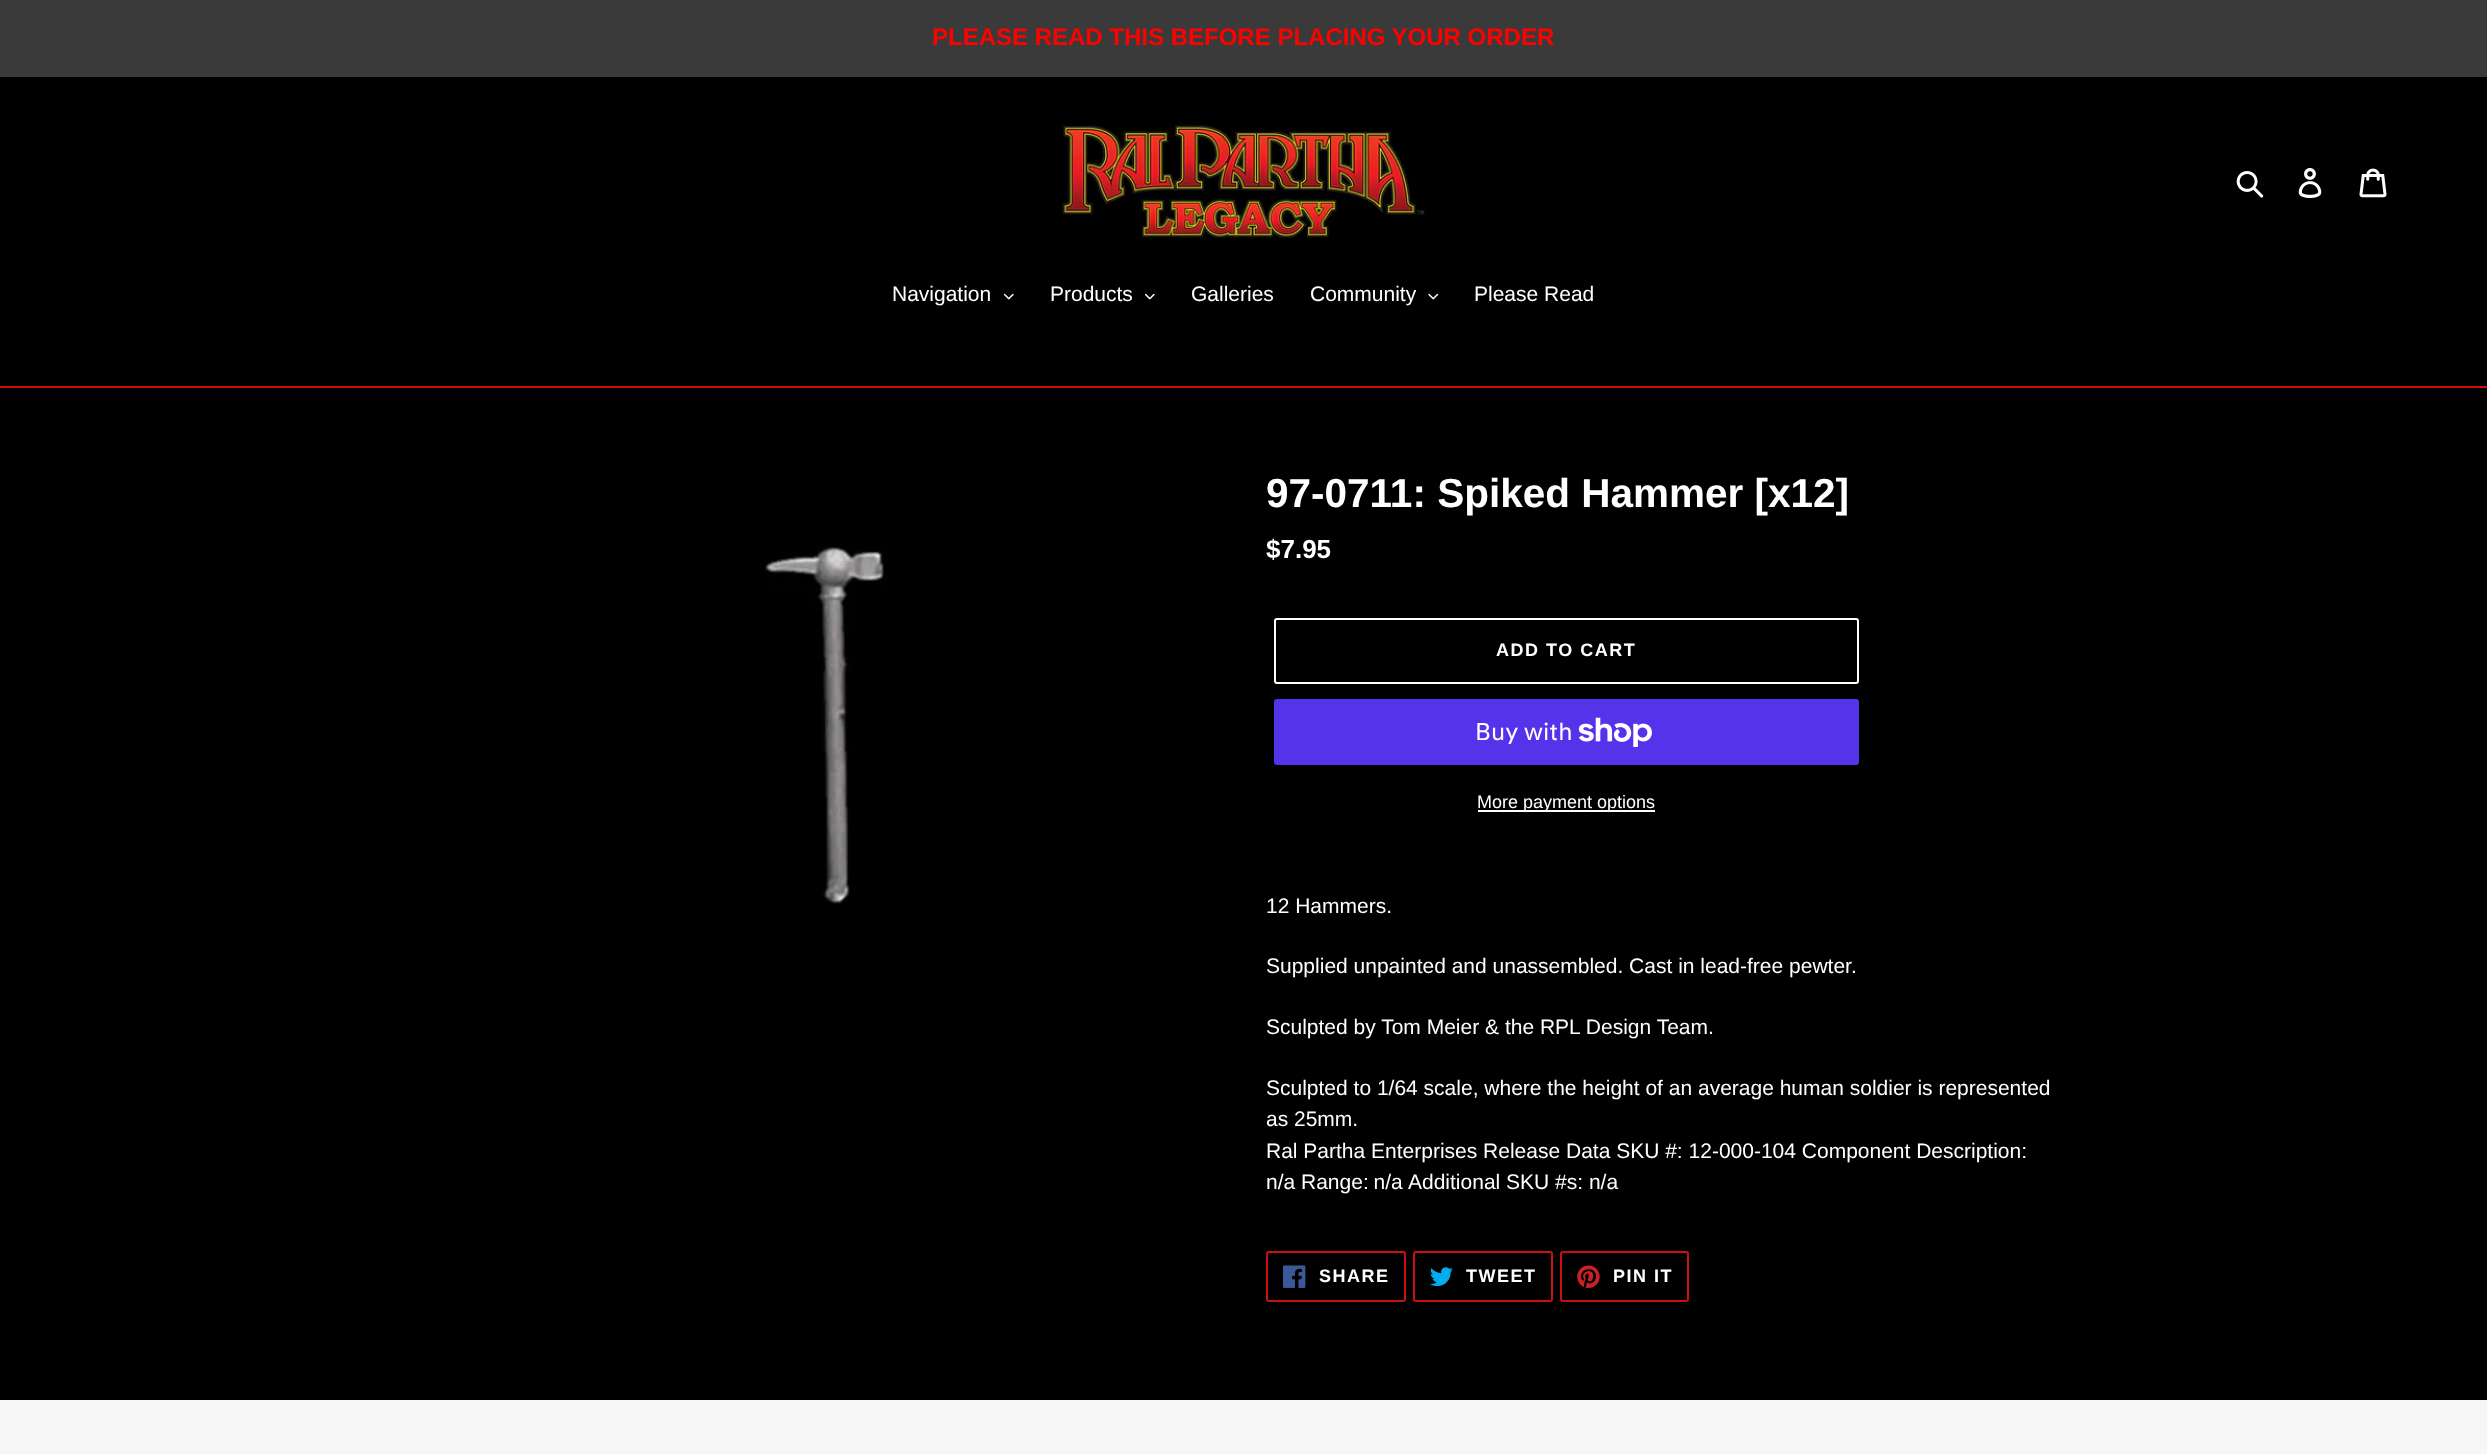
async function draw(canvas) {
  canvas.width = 2487
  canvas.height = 1454
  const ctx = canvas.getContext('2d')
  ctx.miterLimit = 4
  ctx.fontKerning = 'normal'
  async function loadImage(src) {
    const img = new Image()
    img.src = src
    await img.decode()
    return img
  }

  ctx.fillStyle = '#000'
  ctx.fillRect(0, 0, 2487, 1454)
  ctx.fillStyle = '#3a3a3a'
  ctx.fillRect(0, 0, 2487, 77)
  ctx.font = 'bold 24px Liberation Sans'
  ctx.fillStyle = '#f00'
  ctx.fillText('PLEASE READ THIS BEFORE PLACING YOUR ORDER', 932, 45)
  ctx.drawImage(await loadImage('image0.png'), 1058, 121, 367, 118)
  ctx.drawImage(await loadImage('image1.png'), 2236, 171, 28, 27)
  ctx.drawImage(await loadImage('image2.png'), 2298, 168, 24, 30)
  ctx.drawImage(await loadImage('image3.png'), 2359, 168, 28, 30)
  ctx.fillStyle = '#cc1010'
  ctx.fillRect(0, 386, 2487, 2)
  ctx.font = '21px Liberation Sans'
  ctx.fillStyle = '#fff'
  ctx.fillText('Navigation', 892, 301)
  ctx.drawImage(await loadImage('image4.png'), 1004, 293, 10, 7)
  ctx.fillText('Products', 1050, 301)
  ctx.drawImage(await loadImage('image4.png'), 1145, 293, 10, 7)
  ctx.fillText('Galleries', 1191, 301)
  ctx.fillText('Community', 1310, 301)
  ctx.drawImage(await loadImage('image5.png'), 1428, 293, 11, 7)
  ctx.fillText('Please Read', 1474, 301)
  ctx.drawImage(await loadImage('image6.png'), 765, 547, 123, 357)
  ctx.font = 'bold 40.5px Liberation Sans'
  ctx.fillText('97-0711: Spiked Hammer [x12]', 1266, 507)
  ctx.font = 'bold 26px Liberation Sans'
  ctx.fillText('$7.95', 1266, 558)
  ctx.beginPath()
  ctx.roundRect(1275, 619, 583, 64, 2)
  ctx.strokeStyle = '#fff'
  ctx.lineWidth = 2
  ctx.stroke()
  ctx.letterSpacing = '1.5px'
  ctx.font = 'bold 18px Liberation Sans'
  ctx.fillText('ADD TO CART', 1496, 656)
  ctx.fillStyle = '#5433eb'
  ctx.beginPath()
  ctx.roundRect(1274, 699, 585, 66, 3)
  ctx.fill()
  ctx.letterSpacing = '0px'
  ctx.font = '24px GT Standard'
  ctx.fillStyle = '#fff'
  ctx.fillText('Buy with', 1475, 740)
  ctx.drawImage(await loadImage('image7.png'), 1578, 717, 74, 30)
  ctx.fillRect(1478, 810, 177, 2)
  ctx.font = '18px Liberation Sans'
  ctx.fillText('More payment options', 1477, 808)
  ctx.font = '21px Liberation Sans'
  ctx.fillText('12 Hammers.', 1266, 913)
  ctx.fillText('Supplied unpainted and unassembled. Cast in lead-free pewter.', 1266, 973)
  ctx.fillText('Sculpted by Tom Meier & the RPL Design Team.', 1266, 1034)
  ctx.fillText('Sculpted to 1/64 scale, where the height of an average human soldier is represented', 1266, 1095)
  ctx.fillText('as 25mm.', 1266, 1126)
  ctx.fillText('Ral Partha Enterprises Release Data SKU #: 12-000-104 Component Description:', 1266, 1158)
  ctx.fillText('n/a', 1266, 1189)
  ctx.wordSpacing = '-1px'
  ctx.fillText('Range: n/a', 1301, 1189)
  ctx.wordSpacing = '0px'
  ctx.fillText('Additional SKU #s: n/a', 1408, 1189)
  ctx.beginPath()
  ctx.roundRect(1267, 1252, 138, 49, 2)
  ctx.strokeStyle = '#cc1010'
  ctx.stroke()
  ctx.drawImage(await loadImage('image8.png'), 1283, 1265, 23, 23)
  ctx.letterSpacing = '1.5px'
  ctx.font = 'bold 18px Liberation Sans'
  ctx.fillText('SHARE', 1319, 1282)
  ctx.beginPath()
  ctx.roundRect(1414, 1252, 138, 49, 2)
  ctx.stroke()
  ctx.drawImage(await loadImage('image9.png'), 1430, 1267, 23, 20)
  ctx.fillText('TWEET', 1466, 1282)
  ctx.beginPath()
  ctx.roundRect(1561, 1252, 127, 49, 2)
  ctx.stroke()
  ctx.drawImage(await loadImage('image10.png'), 1577, 1265, 23, 23)
  ctx.fillText('PIN IT', 1613, 1282)
  ctx.fillStyle = '#f6f6f6'
  ctx.fillRect(0, 1400, 2487, 54)
}

draw(document.querySelector('canvas'))
